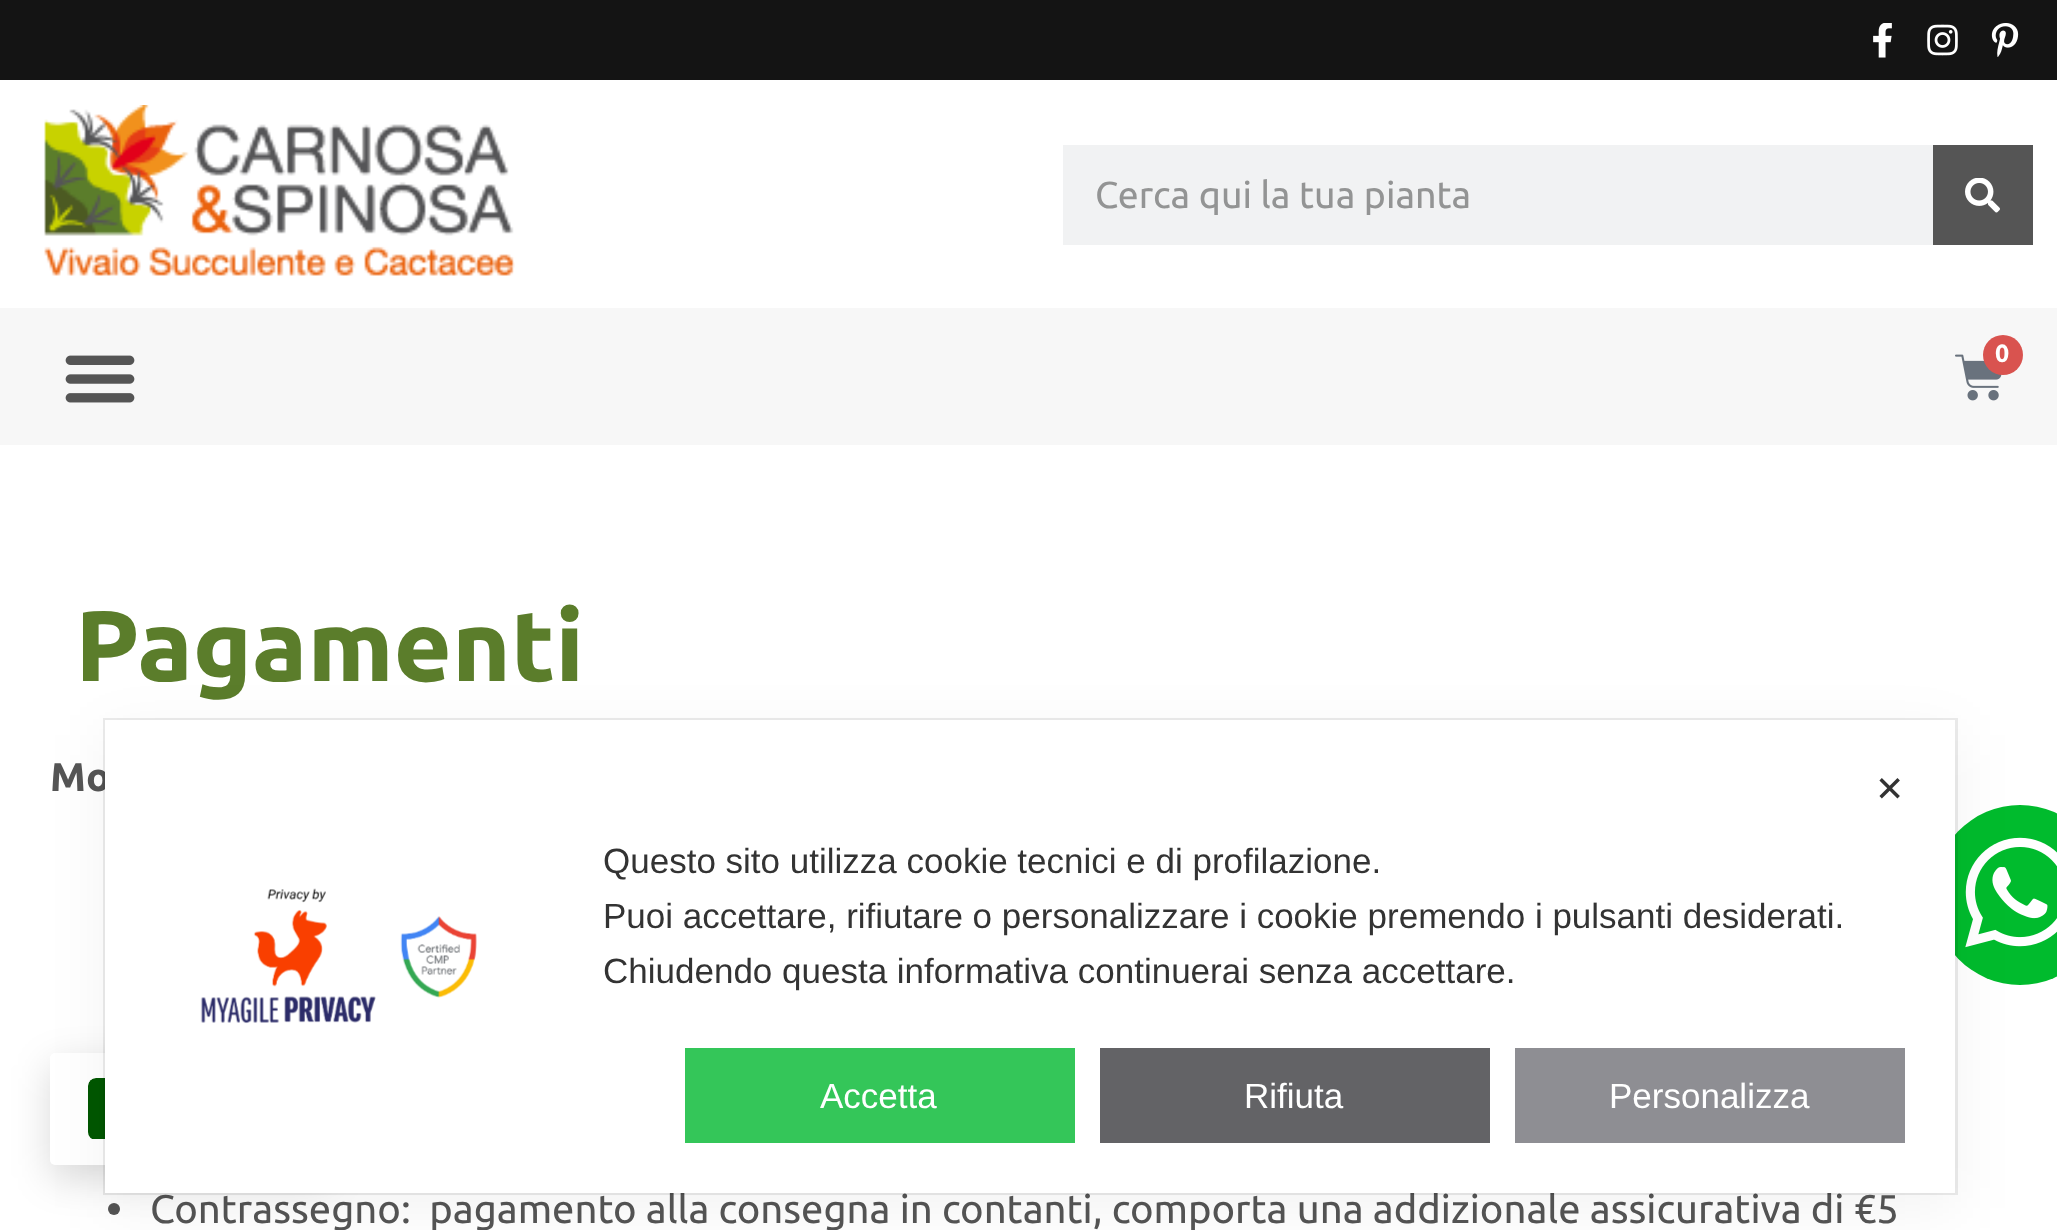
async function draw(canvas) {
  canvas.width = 2057
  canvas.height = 1230
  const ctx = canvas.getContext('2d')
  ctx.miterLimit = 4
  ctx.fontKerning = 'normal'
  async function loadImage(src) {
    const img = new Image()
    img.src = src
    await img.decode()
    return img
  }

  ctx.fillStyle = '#fff'
  ctx.fillRect(0, 0, 2057, 1230)
  ctx.fillStyle = '#141414'
  ctx.fillRect(0, 0, 2057, 80)
  ctx.drawImage(await loadImage('image0.png'), 1873, 23, 19, 35)
  ctx.drawImage(await loadImage('image1.png'), 1927, 24, 31, 32)
  ctx.drawImage(await loadImage('image2.png'), 1991, 23, 28, 34)
  ctx.drawImage(await loadImage('image3.png'), 44, 105, 471, 171)
  ctx.fillStyle = '#f1f2f3'
  ctx.fillRect(1063, 145, 870, 100)
  ctx.font = '37.5px Ubuntu'
  ctx.fillStyle = '#939494'
  ctx.fillText('Cerca qui la tua pianta', 1095, 208)
  ctx.fillStyle = '#555'
  ctx.fillRect(1933, 145, 100, 100)
  ctx.drawImage(await loadImage('image4.png'), 1965, 178, 35, 35)
  ctx.fillStyle = '#f7f7f7'
  ctx.fillRect(0, 308, 2057, 137)
  ctx.drawImage(await loadImage('image5.png'), 65, 355, 70, 48)
  ctx.drawImage(await loadImage('image6.png'), 1955, 354, 47, 47)
  ctx.fillStyle = '#d9534f'
  ctx.beginPath()
  ctx.arc(2003, 355, 20, 0, 2 * Math.PI)
  ctx.fill()
  ctx.font = 'bold 25px Ubuntu'
  ctx.fillStyle = '#fff'
  ctx.fillText('0', 1995, 362)
  ctx.font = 'bold 100px Ubuntu'
  ctx.fillStyle = '#5b7d2b'
  ctx.fillText('Pagamenti', 75, 681)
  ctx.font = 'bold 40px Ubuntu'
  ctx.fillStyle = '#555'
  ctx.fillText('Mo', 50, 791)
  ctx.beginPath()
  ctx.arc(114, 1209, 6, 0, 2 * Math.PI)
  ctx.fill()
  ctx.font = '40px Ubuntu'
  ctx.fillText('Contrassegno:  pagamento alla consegna in contanti, comporta una addizionale assicurativa di €5', 150, 1223)
  ctx.fillStyle = '#00bb2d'
  ctx.beginPath()
  ctx.ellipse(2020, 895, 87.5, 90, 0, 0, 2 * Math.PI)
  ctx.fill()
  ctx.fillStyle = '#00000026'
  ctx.filter = 'blur(19px)'
  ctx.beginPath()
  ctx.roundRect(50, 1065, 280, 113, 5)
  ctx.fill()
  ctx.filter = 'none'
  ctx.fillStyle = '#fff'
  ctx.beginPath()
  ctx.roundRect(50, 1053, 280, 112, 5)
  ctx.fill()
  ctx.save()
  ctx.beginPath()
  ctx.roundRect(88, 1078, 82, 62, 8)
  ctx.clip()
  ctx.fillStyle = '#005700'
  ctx.beginPath()
  ctx.roundRect(88, 1078, 27, 61, [8, 0, 0, 0])
  ctx.fill()
  ctx.restore()
  ctx.strokeStyle = '#00000014'
  ctx.lineWidth = 3
  ctx.strokeRect(104.5, 719.5, 1852, 474)
  ctx.drawImage(await loadImage('image8.png'), 1965, 837, 92, 111)
  ctx.fillStyle = '#0000000d'
  ctx.filter = 'blur(30px)'
  ctx.beginPath()
  ctx.rect(105, 735, 1850, 473)
  ctx.fill()
  ctx.filter = 'none'
  ctx.fillStyle = '#fff'
  ctx.fillRect(105, 720, 1850, 473)
  ctx.font = '35px DejaVu Sans'
  ctx.fillStyle = '#333'
  ctx.fillText('✕', 1875, 801)
  ctx.drawImage(await loadImage('image7.png'), 200, 888, 277, 136)
  ctx.font = '35px Liberation Sans'
  ctx.fillText('Questo sito utilizza cookie tecnici e di profilazione.', 603, 873)
  ctx.fillText('Puoi accettare, rifiutare o personalizzare i cookie premendo i pulsanti desiderati.', 603, 928)
  ctx.fillText('Chiudendo questa informativa continuerai senza accettare.', 603, 983)
  ctx.fillStyle = '#34c659'
  ctx.fillRect(685, 1048, 390, 95)
  ctx.fillStyle = '#fff'
  ctx.fillText('Accetta', 820, 1108)
  ctx.fillStyle = '#636366'
  ctx.fillRect(1100, 1048, 390, 95)
  ctx.fillStyle = '#fff'
  ctx.fillText('Rifiuta', 1244, 1108)
  ctx.fillStyle = '#8e8e93'
  ctx.fillRect(1515, 1048, 390, 95)
  ctx.fillStyle = '#fff'
  ctx.fillText('Personalizza', 1609, 1108)
}

draw(document.querySelector('canvas'))
